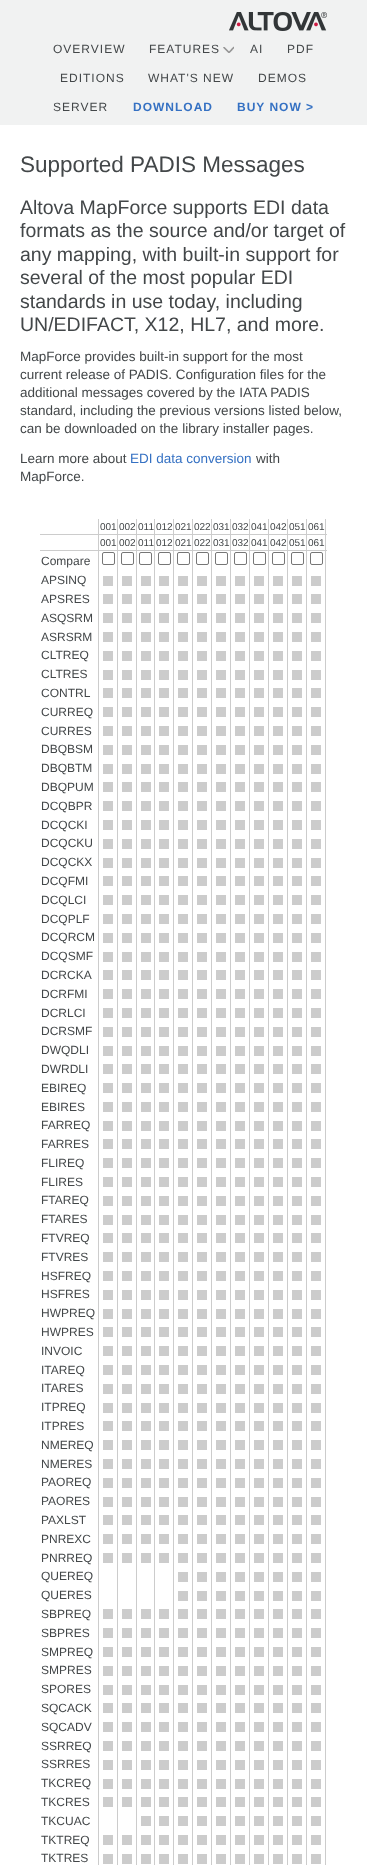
async function draw(canvas) {
  canvas.width = 367
  canvas.height = 1865
  const ctx = canvas.getContext('2d')
  ctx.miterLimit = 4
  ctx.fontKerning = 'normal'
  async function loadImage(src) {
    const img = new Image()
    img.src = src
    await img.decode()
    return img
  }

  ctx.fillStyle = '#f1f2f2'
  ctx.fillRect(0, 0, 367, 1865)
  ctx.drawImage(await loadImage('image0.png'), 229, 12, 98, 19)
  ctx.letterSpacing = '1px'
  ctx.font = '12px Liberation Sans'
  ctx.fillStyle = '#434749'
  ctx.fillText('OVERVIEW', 53, 53)
  ctx.drawImage(await loadImage('image1.png'), 223, 46, 11, 7)
  ctx.fillText('FEATURES', 149, 53)
  ctx.fillText('AI', 250, 53)
  ctx.fillText('PDF', 287, 53)
  ctx.fillText('EDITIONS', 60, 82)
  ctx.fillText('WHAT\'S NEW', 148, 82)
  ctx.fillText('DEMOS', 258, 82)
  ctx.fillText('SERVER', 53, 111)
  ctx.font = 'bold 12px Liberation Sans'
  ctx.fillStyle = '#3571c3'
  ctx.fillText('DOWNLOAD', 133, 111)
  ctx.fillText('BUY NOW >', 237, 111)
  ctx.fillStyle = '#fff'
  ctx.fillRect(0, 125, 367, 1740)
  ctx.letterSpacing = '0px'
  ctx.font = '22.5px Liberation Sans'
  ctx.fillStyle = '#434749'
  ctx.fillText('Supported PADIS Messages', 20, 172)
  ctx.font = '19.5px Liberation Sans'
  ctx.fillText('Altova MapForce supports EDI data', 20, 214)
  ctx.fillText('formats as the source and/or target of', 20, 237)
  ctx.fillText('any mapping, with built-in support for', 20, 261)
  ctx.fillText('several of the most popular EDI', 20, 284)
  ctx.fillText('standards in use today, including', 20, 308)
  ctx.fillText('UN/EDIFACT, X12, HL7, and more.', 20, 331)
  ctx.font = '13.5px Liberation Sans'
  ctx.fillText('MapForce provides built-in support for the most', 20, 361)
  ctx.fillText('current release of PADIS. Configuration files for the', 20, 379)
  ctx.fillText('additional messages covered by the IATA PADIS', 20, 397)
  ctx.fillText('standard, including the previous versions listed below,', 20, 415)
  ctx.fillText('can be downloaded on the library installer pages.', 20, 433)
  ctx.fillText('Learn more about', 20, 463)
  ctx.fillStyle = '#3571c3'
  ctx.fillText('EDI data conversion', 130, 463)
  ctx.fillStyle = '#434749'
  ctx.fillText('with', 256, 463)
  ctx.fillText('MapForce.', 20, 481)
  ctx.fillStyle = '#ccc'
  ctx.fillRect(325, 534, 2, 1)
  ctx.fillRect(325, 519, 1, 16)
  ctx.fillRect(306, 534, 20, 1)
  ctx.fillRect(306, 519, 1, 16)
  ctx.fillRect(287, 534, 20, 1)
  ctx.fillRect(287, 519, 1, 16)
  ctx.fillRect(268, 534, 20, 1)
  ctx.fillRect(268, 519, 1, 16)
  ctx.fillRect(249, 534, 20, 1)
  ctx.fillRect(249, 519, 1, 16)
  ctx.fillRect(230, 534, 20, 1)
  ctx.fillRect(230, 519, 1, 16)
  ctx.fillRect(211, 534, 20, 1)
  ctx.fillRect(211, 519, 1, 16)
  ctx.fillRect(192, 534, 20, 1)
  ctx.fillRect(192, 519, 1, 16)
  ctx.fillRect(173, 534, 20, 1)
  ctx.fillRect(173, 519, 1, 16)
  ctx.fillRect(154, 534, 20, 1)
  ctx.fillRect(154, 519, 1, 16)
  ctx.fillRect(136, 534, 19, 1)
  ctx.fillRect(136, 519, 1, 16)
  ctx.fillRect(117, 534, 20, 1)
  ctx.fillRect(117, 519, 1, 16)
  ctx.fillRect(98, 534, 20, 1)
  ctx.fillRect(98, 519, 1, 16)
  ctx.font = '10px Liberation Sans'
  ctx.fillStyle = '#434749'
  ctx.fillText('001', 100, 530)
  ctx.fillText('002', 119, 530)
  ctx.fillText('011', 138, 530)
  ctx.fillText('012', 156, 530)
  ctx.fillText('021', 175, 530)
  ctx.fillText('022', 194, 530)
  ctx.fillText('031', 213, 530)
  ctx.fillText('032', 232, 530)
  ctx.fillText('041', 251, 530)
  ctx.fillText('042', 270, 530)
  ctx.fillText('051', 289, 530)
  ctx.fillText('061', 308, 530)
  ctx.fillStyle = '#ccc'
  ctx.fillRect(40, 534, 59, 1)
  ctx.fillRect(325, 550, 1, 1315)
  ctx.fillRect(325, 550, 2, 1)
  ctx.fillRect(325, 535, 1, 16)
  ctx.fillRect(306, 550, 1, 1315)
  ctx.fillRect(306, 550, 20, 1)
  ctx.fillRect(306, 535, 1, 16)
  ctx.fillRect(287, 550, 1, 1315)
  ctx.fillRect(287, 550, 20, 1)
  ctx.fillRect(287, 535, 1, 16)
  ctx.fillRect(268, 550, 1, 1315)
  ctx.fillRect(268, 550, 20, 1)
  ctx.fillRect(268, 535, 1, 16)
  ctx.fillRect(249, 550, 1, 1315)
  ctx.fillRect(249, 550, 20, 1)
  ctx.fillRect(249, 535, 1, 16)
  ctx.fillRect(230, 550, 1, 1315)
  ctx.fillRect(230, 550, 20, 1)
  ctx.fillRect(230, 535, 1, 16)
  ctx.fillRect(211, 550, 1, 1315)
  ctx.fillRect(211, 550, 20, 1)
  ctx.fillRect(211, 535, 1, 16)
  ctx.fillRect(192, 550, 1, 1315)
  ctx.fillRect(192, 550, 20, 1)
  ctx.fillRect(192, 535, 1, 16)
  ctx.fillRect(173, 550, 1, 1315)
  ctx.fillRect(173, 550, 20, 1)
  ctx.fillRect(173, 535, 1, 16)
  ctx.fillRect(154, 550, 1, 1315)
  ctx.fillRect(154, 550, 20, 1)
  ctx.fillRect(154, 535, 1, 16)
  ctx.fillRect(136, 550, 1, 1315)
  ctx.fillRect(136, 550, 19, 1)
  ctx.fillRect(136, 535, 1, 16)
  ctx.fillRect(117, 550, 1, 1315)
  ctx.fillRect(117, 550, 20, 1)
  ctx.fillRect(117, 535, 1, 16)
  ctx.fillRect(98, 550, 1, 1315)
  ctx.fillRect(98, 550, 20, 1)
  ctx.fillRect(98, 535, 1, 16)
  ctx.fillStyle = '#434749'
  ctx.fillText('001', 100, 546)
  ctx.fillText('002', 119, 546)
  ctx.fillText('011', 138, 546)
  ctx.fillText('012', 156, 546)
  ctx.fillText('021', 175, 546)
  ctx.fillText('022', 194, 546)
  ctx.fillText('031', 213, 546)
  ctx.fillText('032', 232, 546)
  ctx.fillText('041', 251, 546)
  ctx.fillText('042', 270, 546)
  ctx.fillText('051', 289, 546)
  ctx.fillText('061', 308, 546)
  ctx.fillStyle = '#ccc'
  ctx.fillRect(40, 550, 59, 1)
  ctx.font = '12px Liberation Sans'
  ctx.fillStyle = '#434749'
  ctx.fillText('Compare', 41, 565)
  ctx.beginPath()
  ctx.roundRect(102.5, 552.5, 12, 12, 1.5)
  ctx.strokeStyle = '#767676'
  ctx.stroke()
  ctx.beginPath()
  ctx.roundRect(121.5, 552.5, 12, 12, 1.5)
  ctx.stroke()
  ctx.beginPath()
  ctx.roundRect(139.5, 552.5, 12, 12, 1.5)
  ctx.stroke()
  ctx.beginPath()
  ctx.roundRect(158.5, 552.5, 12, 12, 1.5)
  ctx.stroke()
  ctx.beginPath()
  ctx.roundRect(177.5, 552.5, 12, 12, 1.5)
  ctx.stroke()
  ctx.beginPath()
  ctx.roundRect(196.5, 552.5, 12, 12, 1.5)
  ctx.stroke()
  ctx.beginPath()
  ctx.roundRect(215.5, 552.5, 12, 12, 1.5)
  ctx.stroke()
  ctx.beginPath()
  ctx.roundRect(234.5, 552.5, 12, 12, 1.5)
  ctx.stroke()
  ctx.beginPath()
  ctx.roundRect(253.5, 552.5, 12, 12, 1.5)
  ctx.stroke()
  ctx.beginPath()
  ctx.roundRect(272.5, 552.5, 12, 12, 1.5)
  ctx.stroke()
  ctx.beginPath()
  ctx.roundRect(291.5, 552.5, 12, 12, 1.5)
  ctx.stroke()
  ctx.beginPath()
  ctx.roundRect(310.5, 552.5, 12, 12, 1.5)
  ctx.stroke()
  ctx.fillText('APSINQ', 41, 584)
  ctx.fillStyle = '#ccc'
  ctx.fillRect(103, 576, 10, 10)
  ctx.fillRect(122, 576, 10, 10)
  ctx.fillRect(141, 576, 10, 10)
  ctx.fillRect(159, 576, 10, 10)
  ctx.fillRect(178, 576, 10, 10)
  ctx.fillRect(197, 576, 10, 10)
  ctx.fillRect(216, 576, 10, 10)
  ctx.fillRect(235, 576, 10, 10)
  ctx.fillRect(254, 576, 10, 10)
  ctx.fillRect(273, 576, 10, 10)
  ctx.fillRect(292, 576, 10, 10)
  ctx.fillRect(311, 576, 10, 10)
  ctx.fillStyle = '#434749'
  ctx.fillText('APSRES', 41, 603)
  ctx.fillStyle = '#ccc'
  ctx.fillRect(103, 594, 10, 10)
  ctx.fillRect(122, 594, 10, 10)
  ctx.fillRect(141, 594, 10, 10)
  ctx.fillRect(159, 594, 10, 10)
  ctx.fillRect(178, 594, 10, 10)
  ctx.fillRect(197, 594, 10, 10)
  ctx.fillRect(216, 594, 10, 10)
  ctx.fillRect(235, 594, 10, 10)
  ctx.fillRect(254, 594, 10, 10)
  ctx.fillRect(273, 594, 10, 10)
  ctx.fillRect(292, 594, 10, 10)
  ctx.fillRect(311, 594, 10, 10)
  ctx.fillStyle = '#434749'
  ctx.fillText('ASQSRM', 41, 622)
  ctx.fillStyle = '#ccc'
  ctx.fillRect(103, 613, 10, 10)
  ctx.fillRect(122, 613, 10, 10)
  ctx.fillRect(141, 613, 10, 10)
  ctx.fillRect(159, 613, 10, 10)
  ctx.fillRect(178, 613, 10, 10)
  ctx.fillRect(197, 613, 10, 10)
  ctx.fillRect(216, 613, 10, 10)
  ctx.fillRect(235, 613, 10, 10)
  ctx.fillRect(254, 613, 10, 10)
  ctx.fillRect(273, 613, 10, 10)
  ctx.fillRect(292, 613, 10, 10)
  ctx.fillRect(311, 613, 10, 10)
  ctx.fillStyle = '#434749'
  ctx.fillText('ASRSRM', 41, 641)
  ctx.fillStyle = '#ccc'
  ctx.fillRect(103, 632, 10, 10)
  ctx.fillRect(122, 632, 10, 10)
  ctx.fillRect(141, 632, 10, 10)
  ctx.fillRect(159, 632, 10, 10)
  ctx.fillRect(178, 632, 10, 10)
  ctx.fillRect(197, 632, 10, 10)
  ctx.fillRect(216, 632, 10, 10)
  ctx.fillRect(235, 632, 10, 10)
  ctx.fillRect(254, 632, 10, 10)
  ctx.fillRect(273, 632, 10, 10)
  ctx.fillRect(292, 632, 10, 10)
  ctx.fillRect(311, 632, 10, 10)
  ctx.fillStyle = '#434749'
  ctx.fillText('CLTREQ', 41, 659)
  ctx.fillStyle = '#ccc'
  ctx.fillRect(103, 651, 10, 10)
  ctx.fillRect(122, 651, 10, 10)
  ctx.fillRect(141, 651, 10, 10)
  ctx.fillRect(159, 651, 10, 10)
  ctx.fillRect(178, 651, 10, 10)
  ctx.fillRect(197, 651, 10, 10)
  ctx.fillRect(216, 651, 10, 10)
  ctx.fillRect(235, 651, 10, 10)
  ctx.fillRect(254, 651, 10, 10)
  ctx.fillRect(273, 651, 10, 10)
  ctx.fillRect(292, 651, 10, 10)
  ctx.fillRect(311, 651, 10, 10)
  ctx.fillStyle = '#434749'
  ctx.fillText('CLTRES', 41, 678)
  ctx.fillStyle = '#ccc'
  ctx.fillRect(103, 670, 10, 10)
  ctx.fillRect(122, 670, 10, 10)
  ctx.fillRect(141, 670, 10, 10)
  ctx.fillRect(159, 670, 10, 10)
  ctx.fillRect(178, 670, 10, 10)
  ctx.fillRect(197, 670, 10, 10)
  ctx.fillRect(216, 670, 10, 10)
  ctx.fillRect(235, 670, 10, 10)
  ctx.fillRect(254, 670, 10, 10)
  ctx.fillRect(273, 670, 10, 10)
  ctx.fillRect(292, 670, 10, 10)
  ctx.fillRect(311, 670, 10, 10)
  ctx.fillStyle = '#434749'
  ctx.fillText('CONTRL', 41, 697)
  ctx.fillStyle = '#ccc'
  ctx.fillRect(103, 688, 10, 10)
  ctx.fillRect(122, 688, 10, 10)
  ctx.fillRect(141, 688, 10, 10)
  ctx.fillRect(159, 688, 10, 10)
  ctx.fillRect(178, 688, 10, 10)
  ctx.fillRect(197, 688, 10, 10)
  ctx.fillRect(216, 688, 10, 10)
  ctx.fillRect(235, 688, 10, 10)
  ctx.fillRect(254, 688, 10, 10)
  ctx.fillRect(273, 688, 10, 10)
  ctx.fillRect(292, 688, 10, 10)
  ctx.fillRect(311, 688, 10, 10)
  ctx.fillStyle = '#434749'
  ctx.fillText('CURREQ', 41, 716)
  ctx.fillStyle = '#ccc'
  ctx.fillRect(103, 707, 10, 10)
  ctx.fillRect(122, 707, 10, 10)
  ctx.fillRect(141, 707, 10, 10)
  ctx.fillRect(159, 707, 10, 10)
  ctx.fillRect(178, 707, 10, 10)
  ctx.fillRect(197, 707, 10, 10)
  ctx.fillRect(216, 707, 10, 10)
  ctx.fillRect(235, 707, 10, 10)
  ctx.fillRect(254, 707, 10, 10)
  ctx.fillRect(273, 707, 10, 10)
  ctx.fillRect(292, 707, 10, 10)
  ctx.fillRect(311, 707, 10, 10)
  ctx.fillStyle = '#434749'
  ctx.fillText('CURRES', 41, 735)
  ctx.fillStyle = '#ccc'
  ctx.fillRect(103, 726, 10, 10)
  ctx.fillRect(122, 726, 10, 10)
  ctx.fillRect(141, 726, 10, 10)
  ctx.fillRect(159, 726, 10, 10)
  ctx.fillRect(178, 726, 10, 10)
  ctx.fillRect(197, 726, 10, 10)
  ctx.fillRect(216, 726, 10, 10)
  ctx.fillRect(235, 726, 10, 10)
  ctx.fillRect(254, 726, 10, 10)
  ctx.fillRect(273, 726, 10, 10)
  ctx.fillRect(292, 726, 10, 10)
  ctx.fillRect(311, 726, 10, 10)
  ctx.fillStyle = '#434749'
  ctx.fillText('DBQBSM', 41, 753)
  ctx.fillStyle = '#ccc'
  ctx.fillRect(103, 745, 10, 10)
  ctx.fillRect(122, 745, 10, 10)
  ctx.fillRect(141, 745, 10, 10)
  ctx.fillRect(159, 745, 10, 10)
  ctx.fillRect(178, 745, 10, 10)
  ctx.fillRect(197, 745, 10, 10)
  ctx.fillRect(216, 745, 10, 10)
  ctx.fillRect(235, 745, 10, 10)
  ctx.fillRect(254, 745, 10, 10)
  ctx.fillRect(273, 745, 10, 10)
  ctx.fillRect(292, 745, 10, 10)
  ctx.fillRect(311, 745, 10, 10)
  ctx.fillStyle = '#434749'
  ctx.fillText('DBQBTM', 41, 772)
  ctx.fillStyle = '#ccc'
  ctx.fillRect(103, 764, 10, 10)
  ctx.fillRect(122, 764, 10, 10)
  ctx.fillRect(141, 764, 10, 10)
  ctx.fillRect(159, 764, 10, 10)
  ctx.fillRect(178, 764, 10, 10)
  ctx.fillRect(197, 764, 10, 10)
  ctx.fillRect(216, 764, 10, 10)
  ctx.fillRect(235, 764, 10, 10)
  ctx.fillRect(254, 764, 10, 10)
  ctx.fillRect(273, 764, 10, 10)
  ctx.fillRect(292, 764, 10, 10)
  ctx.fillRect(311, 764, 10, 10)
  ctx.fillStyle = '#434749'
  ctx.fillText('DBQPUM', 41, 791)
  ctx.fillStyle = '#ccc'
  ctx.fillRect(103, 782, 10, 10)
  ctx.fillRect(122, 782, 10, 10)
  ctx.fillRect(141, 782, 10, 10)
  ctx.fillRect(159, 782, 10, 10)
  ctx.fillRect(178, 782, 10, 10)
  ctx.fillRect(197, 782, 10, 10)
  ctx.fillRect(216, 782, 10, 10)
  ctx.fillRect(235, 782, 10, 10)
  ctx.fillRect(254, 782, 10, 10)
  ctx.fillRect(273, 782, 10, 10)
  ctx.fillRect(292, 782, 10, 10)
  ctx.fillRect(311, 782, 10, 10)
  ctx.fillStyle = '#434749'
  ctx.fillText('DCQBPR', 41, 810)
  ctx.fillStyle = '#ccc'
  ctx.fillRect(103, 801, 10, 10)
  ctx.fillRect(122, 801, 10, 10)
  ctx.fillRect(141, 801, 10, 10)
  ctx.fillRect(159, 801, 10, 10)
  ctx.fillRect(178, 801, 10, 10)
  ctx.fillRect(197, 801, 10, 10)
  ctx.fillRect(216, 801, 10, 10)
  ctx.fillRect(235, 801, 10, 10)
  ctx.fillRect(254, 801, 10, 10)
  ctx.fillRect(273, 801, 10, 10)
  ctx.fillRect(292, 801, 10, 10)
  ctx.fillRect(311, 801, 10, 10)
  ctx.fillStyle = '#434749'
  ctx.fillText('DCQCKI', 41, 829)
  ctx.fillStyle = '#ccc'
  ctx.fillRect(103, 820, 10, 10)
  ctx.fillRect(122, 820, 10, 10)
  ctx.fillRect(141, 820, 10, 10)
  ctx.fillRect(159, 820, 10, 10)
  ctx.fillRect(178, 820, 10, 10)
  ctx.fillRect(197, 820, 10, 10)
  ctx.fillRect(216, 820, 10, 10)
  ctx.fillRect(235, 820, 10, 10)
  ctx.fillRect(254, 820, 10, 10)
  ctx.fillRect(273, 820, 10, 10)
  ctx.fillRect(292, 820, 10, 10)
  ctx.fillRect(311, 820, 10, 10)
  ctx.fillStyle = '#434749'
  ctx.fillText('DCQCKU', 41, 847)
  ctx.fillStyle = '#ccc'
  ctx.fillRect(103, 839, 10, 10)
  ctx.fillRect(122, 839, 10, 10)
  ctx.fillRect(141, 839, 10, 10)
  ctx.fillRect(159, 839, 10, 10)
  ctx.fillRect(178, 839, 10, 10)
  ctx.fillRect(197, 839, 10, 10)
  ctx.fillRect(216, 839, 10, 10)
  ctx.fillRect(235, 839, 10, 10)
  ctx.fillRect(254, 839, 10, 10)
  ctx.fillRect(273, 839, 10, 10)
  ctx.fillRect(292, 839, 10, 10)
  ctx.fillRect(311, 839, 10, 10)
  ctx.fillStyle = '#434749'
  ctx.fillText('DCQCKX', 41, 866)
  ctx.fillStyle = '#ccc'
  ctx.fillRect(103, 858, 10, 10)
  ctx.fillRect(122, 858, 10, 10)
  ctx.fillRect(141, 858, 10, 10)
  ctx.fillRect(159, 858, 10, 10)
  ctx.fillRect(178, 858, 10, 10)
  ctx.fillRect(197, 858, 10, 10)
  ctx.fillRect(216, 858, 10, 10)
  ctx.fillRect(235, 858, 10, 10)
  ctx.fillRect(254, 858, 10, 10)
  ctx.fillRect(273, 858, 10, 10)
  ctx.fillRect(292, 858, 10, 10)
  ctx.fillRect(311, 858, 10, 10)
  ctx.fillStyle = '#434749'
  ctx.fillText('DCQFMI', 41, 885)
  ctx.fillStyle = '#ccc'
  ctx.fillRect(103, 876, 10, 10)
  ctx.fillRect(122, 876, 10, 10)
  ctx.fillRect(141, 876, 10, 10)
  ctx.fillRect(159, 876, 10, 10)
  ctx.fillRect(178, 876, 10, 10)
  ctx.fillRect(197, 876, 10, 10)
  ctx.fillRect(216, 876, 10, 10)
  ctx.fillRect(235, 876, 10, 10)
  ctx.fillRect(254, 876, 10, 10)
  ctx.fillRect(273, 876, 10, 10)
  ctx.fillRect(292, 876, 10, 10)
  ctx.fillRect(311, 876, 10, 10)
  ctx.fillStyle = '#434749'
  ctx.fillText('DCQLCI', 41, 904)
  ctx.fillStyle = '#ccc'
  ctx.fillRect(103, 895, 10, 10)
  ctx.fillRect(122, 895, 10, 10)
  ctx.fillRect(141, 895, 10, 10)
  ctx.fillRect(159, 895, 10, 10)
  ctx.fillRect(178, 895, 10, 10)
  ctx.fillRect(197, 895, 10, 10)
  ctx.fillRect(216, 895, 10, 10)
  ctx.fillRect(235, 895, 10, 10)
  ctx.fillRect(254, 895, 10, 10)
  ctx.fillRect(273, 895, 10, 10)
  ctx.fillRect(292, 895, 10, 10)
  ctx.fillRect(311, 895, 10, 10)
  ctx.fillStyle = '#434749'
  ctx.fillText('DCQPLF', 41, 923)
  ctx.fillStyle = '#ccc'
  ctx.fillRect(103, 914, 10, 10)
  ctx.fillRect(122, 914, 10, 10)
  ctx.fillRect(141, 914, 10, 10)
  ctx.fillRect(159, 914, 10, 10)
  ctx.fillRect(178, 914, 10, 10)
  ctx.fillRect(197, 914, 10, 10)
  ctx.fillRect(216, 914, 10, 10)
  ctx.fillRect(235, 914, 10, 10)
  ctx.fillRect(254, 914, 10, 10)
  ctx.fillRect(273, 914, 10, 10)
  ctx.fillRect(292, 914, 10, 10)
  ctx.fillRect(311, 914, 10, 10)
  ctx.fillStyle = '#434749'
  ctx.fillText('DCQRCM', 41, 941)
  ctx.fillStyle = '#ccc'
  ctx.fillRect(103, 933, 10, 10)
  ctx.fillRect(122, 933, 10, 10)
  ctx.fillRect(141, 933, 10, 10)
  ctx.fillRect(159, 933, 10, 10)
  ctx.fillRect(178, 933, 10, 10)
  ctx.fillRect(197, 933, 10, 10)
  ctx.fillRect(216, 933, 10, 10)
  ctx.fillRect(235, 933, 10, 10)
  ctx.fillRect(254, 933, 10, 10)
  ctx.fillRect(273, 933, 10, 10)
  ctx.fillRect(292, 933, 10, 10)
  ctx.fillRect(311, 933, 10, 10)
  ctx.fillStyle = '#434749'
  ctx.fillText('DCQSMF', 41, 960)
  ctx.fillStyle = '#ccc'
  ctx.fillRect(103, 952, 10, 10)
  ctx.fillRect(122, 952, 10, 10)
  ctx.fillRect(141, 952, 10, 10)
  ctx.fillRect(159, 952, 10, 10)
  ctx.fillRect(178, 952, 10, 10)
  ctx.fillRect(197, 952, 10, 10)
  ctx.fillRect(216, 952, 10, 10)
  ctx.fillRect(235, 952, 10, 10)
  ctx.fillRect(254, 952, 10, 10)
  ctx.fillRect(273, 952, 10, 10)
  ctx.fillRect(292, 952, 10, 10)
  ctx.fillRect(311, 952, 10, 10)
  ctx.fillStyle = '#434749'
  ctx.fillText('DCRCKA', 41, 979)
  ctx.fillStyle = '#ccc'
  ctx.fillRect(103, 970, 10, 10)
  ctx.fillRect(122, 970, 10, 10)
  ctx.fillRect(141, 970, 10, 10)
  ctx.fillRect(159, 970, 10, 10)
  ctx.fillRect(178, 970, 10, 10)
  ctx.fillRect(197, 970, 10, 10)
  ctx.fillRect(216, 970, 10, 10)
  ctx.fillRect(235, 970, 10, 10)
  ctx.fillRect(254, 970, 10, 10)
  ctx.fillRect(273, 970, 10, 10)
  ctx.fillRect(292, 970, 10, 10)
  ctx.fillRect(311, 970, 10, 10)
  ctx.fillStyle = '#434749'
  ctx.fillText('DCRFMI', 41, 998)
  ctx.fillStyle = '#ccc'
  ctx.fillRect(103, 989, 10, 10)
  ctx.fillRect(122, 989, 10, 10)
  ctx.fillRect(141, 989, 10, 10)
  ctx.fillRect(159, 989, 10, 10)
  ctx.fillRect(178, 989, 10, 10)
  ctx.fillRect(197, 989, 10, 10)
  ctx.fillRect(216, 989, 10, 10)
  ctx.fillRect(235, 989, 10, 10)
  ctx.fillRect(254, 989, 10, 10)
  ctx.fillRect(273, 989, 10, 10)
  ctx.fillRect(292, 989, 10, 10)
  ctx.fillRect(311, 989, 10, 10)
  ctx.fillStyle = '#434749'
  ctx.fillText('DCRLCI', 41, 1017)
  ctx.fillStyle = '#ccc'
  ctx.fillRect(103, 1008, 10, 10)
  ctx.fillRect(122, 1008, 10, 10)
  ctx.fillRect(141, 1008, 10, 10)
  ctx.fillRect(159, 1008, 10, 10)
  ctx.fillRect(178, 1008, 10, 10)
  ctx.fillRect(197, 1008, 10, 10)
  ctx.fillRect(216, 1008, 10, 10)
  ctx.fillRect(235, 1008, 10, 10)
  ctx.fillRect(254, 1008, 10, 10)
  ctx.fillRect(273, 1008, 10, 10)
  ctx.fillRect(292, 1008, 10, 10)
  ctx.fillRect(311, 1008, 10, 10)
  ctx.fillStyle = '#434749'
  ctx.fillText('DCRSMF', 41, 1035)
  ctx.fillStyle = '#ccc'
  ctx.fillRect(103, 1027, 10, 10)
  ctx.fillRect(122, 1027, 10, 10)
  ctx.fillRect(141, 1027, 10, 10)
  ctx.fillRect(159, 1027, 10, 10)
  ctx.fillRect(178, 1027, 10, 10)
  ctx.fillRect(197, 1027, 10, 10)
  ctx.fillRect(216, 1027, 10, 10)
  ctx.fillRect(235, 1027, 10, 10)
  ctx.fillRect(254, 1027, 10, 10)
  ctx.fillRect(273, 1027, 10, 10)
  ctx.fillRect(292, 1027, 10, 10)
  ctx.fillRect(311, 1027, 10, 10)
  ctx.fillStyle = '#434749'
  ctx.fillText('DWQDLI', 41, 1054)
  ctx.fillStyle = '#ccc'
  ctx.fillRect(103, 1046, 10, 10)
  ctx.fillRect(122, 1046, 10, 10)
  ctx.fillRect(141, 1046, 10, 10)
  ctx.fillRect(159, 1046, 10, 10)
  ctx.fillRect(178, 1046, 10, 10)
  ctx.fillRect(197, 1046, 10, 10)
  ctx.fillRect(216, 1046, 10, 10)
  ctx.fillRect(235, 1046, 10, 10)
  ctx.fillRect(254, 1046, 10, 10)
  ctx.fillRect(273, 1046, 10, 10)
  ctx.fillRect(292, 1046, 10, 10)
  ctx.fillRect(311, 1046, 10, 10)
  ctx.fillStyle = '#434749'
  ctx.fillText('DWRDLI', 41, 1073)
  ctx.fillStyle = '#ccc'
  ctx.fillRect(103, 1064, 10, 10)
  ctx.fillRect(122, 1064, 10, 10)
  ctx.fillRect(141, 1064, 10, 10)
  ctx.fillRect(159, 1064, 10, 10)
  ctx.fillRect(178, 1064, 10, 10)
  ctx.fillRect(197, 1064, 10, 10)
  ctx.fillRect(216, 1064, 10, 10)
  ctx.fillRect(235, 1064, 10, 10)
  ctx.fillRect(254, 1064, 10, 10)
  ctx.fillRect(273, 1064, 10, 10)
  ctx.fillRect(292, 1064, 10, 10)
  ctx.fillRect(311, 1064, 10, 10)
  ctx.fillStyle = '#434749'
  ctx.fillText('EBIREQ', 41, 1092)
  ctx.fillStyle = '#ccc'
  ctx.fillRect(103, 1083, 10, 10)
  ctx.fillRect(122, 1083, 10, 10)
  ctx.fillRect(141, 1083, 10, 10)
  ctx.fillRect(159, 1083, 10, 10)
  ctx.fillRect(178, 1083, 10, 10)
  ctx.fillRect(197, 1083, 10, 10)
  ctx.fillRect(216, 1083, 10, 10)
  ctx.fillRect(235, 1083, 10, 10)
  ctx.fillRect(254, 1083, 10, 10)
  ctx.fillRect(273, 1083, 10, 10)
  ctx.fillRect(292, 1083, 10, 10)
  ctx.fillRect(311, 1083, 10, 10)
  ctx.fillStyle = '#434749'
  ctx.fillText('EBIRES', 41, 1111)
  ctx.fillStyle = '#ccc'
  ctx.fillRect(103, 1102, 10, 10)
  ctx.fillRect(122, 1102, 10, 10)
  ctx.fillRect(141, 1102, 10, 10)
  ctx.fillRect(159, 1102, 10, 10)
  ctx.fillRect(178, 1102, 10, 10)
  ctx.fillRect(197, 1102, 10, 10)
  ctx.fillRect(216, 1102, 10, 10)
  ctx.fillRect(235, 1102, 10, 10)
  ctx.fillRect(254, 1102, 10, 10)
  ctx.fillRect(273, 1102, 10, 10)
  ctx.fillRect(292, 1102, 10, 10)
  ctx.fillRect(311, 1102, 10, 10)
  ctx.fillStyle = '#434749'
  ctx.fillText('FARREQ', 41, 1129)
  ctx.fillStyle = '#ccc'
  ctx.fillRect(103, 1121, 10, 10)
  ctx.fillRect(122, 1121, 10, 10)
  ctx.fillRect(141, 1121, 10, 10)
  ctx.fillRect(159, 1121, 10, 10)
  ctx.fillRect(178, 1121, 10, 10)
  ctx.fillRect(197, 1121, 10, 10)
  ctx.fillRect(216, 1121, 10, 10)
  ctx.fillRect(235, 1121, 10, 10)
  ctx.fillRect(254, 1121, 10, 10)
  ctx.fillRect(273, 1121, 10, 10)
  ctx.fillRect(292, 1121, 10, 10)
  ctx.fillRect(311, 1121, 10, 10)
  ctx.fillStyle = '#434749'
  ctx.fillText('FARRES', 41, 1148)
  ctx.fillStyle = '#ccc'
  ctx.fillRect(103, 1139, 10, 10)
  ctx.fillRect(122, 1139, 10, 10)
  ctx.fillRect(141, 1139, 10, 10)
  ctx.fillRect(159, 1139, 10, 10)
  ctx.fillRect(178, 1139, 10, 10)
  ctx.fillRect(197, 1139, 10, 10)
  ctx.fillRect(216, 1139, 10, 10)
  ctx.fillRect(235, 1139, 10, 10)
  ctx.fillRect(254, 1139, 10, 10)
  ctx.fillRect(273, 1139, 10, 10)
  ctx.fillRect(292, 1139, 10, 10)
  ctx.fillRect(311, 1139, 10, 10)
  ctx.fillStyle = '#434749'
  ctx.fillText('FLIREQ', 41, 1167)
  ctx.fillStyle = '#ccc'
  ctx.fillRect(103, 1158, 10, 10)
  ctx.fillRect(122, 1158, 10, 10)
  ctx.fillRect(141, 1158, 10, 10)
  ctx.fillRect(159, 1158, 10, 10)
  ctx.fillRect(178, 1158, 10, 10)
  ctx.fillRect(197, 1158, 10, 10)
  ctx.fillRect(216, 1158, 10, 10)
  ctx.fillRect(235, 1158, 10, 10)
  ctx.fillRect(254, 1158, 10, 10)
  ctx.fillRect(273, 1158, 10, 10)
  ctx.fillRect(292, 1158, 10, 10)
  ctx.fillRect(311, 1158, 10, 10)
  ctx.fillStyle = '#434749'
  ctx.fillText('FLIRES', 41, 1186)
  ctx.fillStyle = '#ccc'
  ctx.fillRect(103, 1177, 10, 10)
  ctx.fillRect(122, 1177, 10, 10)
  ctx.fillRect(141, 1177, 10, 10)
  ctx.fillRect(159, 1177, 10, 10)
  ctx.fillRect(178, 1177, 10, 10)
  ctx.fillRect(197, 1177, 10, 10)
  ctx.fillRect(216, 1177, 10, 10)
  ctx.fillRect(235, 1177, 10, 10)
  ctx.fillRect(254, 1177, 10, 10)
  ctx.fillRect(273, 1177, 10, 10)
  ctx.fillRect(292, 1177, 10, 10)
  ctx.fillRect(311, 1177, 10, 10)
  ctx.fillStyle = '#434749'
  ctx.fillText('FTAREQ', 41, 1204)
  ctx.fillStyle = '#ccc'
  ctx.fillRect(103, 1196, 10, 10)
  ctx.fillRect(122, 1196, 10, 10)
  ctx.fillRect(141, 1196, 10, 10)
  ctx.fillRect(159, 1196, 10, 10)
  ctx.fillRect(178, 1196, 10, 10)
  ctx.fillRect(197, 1196, 10, 10)
  ctx.fillRect(216, 1196, 10, 10)
  ctx.fillRect(235, 1196, 10, 10)
  ctx.fillRect(254, 1196, 10, 10)
  ctx.fillRect(273, 1196, 10, 10)
  ctx.fillRect(292, 1196, 10, 10)
  ctx.fillRect(311, 1196, 10, 10)
  ctx.fillStyle = '#434749'
  ctx.fillText('FTARES', 41, 1223)
  ctx.fillStyle = '#ccc'
  ctx.fillRect(103, 1215, 10, 10)
  ctx.fillRect(122, 1215, 10, 10)
  ctx.fillRect(141, 1215, 10, 10)
  ctx.fillRect(159, 1215, 10, 10)
  ctx.fillRect(178, 1215, 10, 10)
  ctx.fillRect(197, 1215, 10, 10)
  ctx.fillRect(216, 1215, 10, 10)
  ctx.fillRect(235, 1215, 10, 10)
  ctx.fillRect(254, 1215, 10, 10)
  ctx.fillRect(273, 1215, 10, 10)
  ctx.fillRect(292, 1215, 10, 10)
  ctx.fillRect(311, 1215, 10, 10)
  ctx.fillStyle = '#434749'
  ctx.fillText('FTVREQ', 41, 1242)
  ctx.fillStyle = '#ccc'
  ctx.fillRect(103, 1233, 10, 10)
  ctx.fillRect(122, 1233, 10, 10)
  ctx.fillRect(141, 1233, 10, 10)
  ctx.fillRect(159, 1233, 10, 10)
  ctx.fillRect(178, 1233, 10, 10)
  ctx.fillRect(197, 1233, 10, 10)
  ctx.fillRect(216, 1233, 10, 10)
  ctx.fillRect(235, 1233, 10, 10)
  ctx.fillRect(254, 1233, 10, 10)
  ctx.fillRect(273, 1233, 10, 10)
  ctx.fillRect(292, 1233, 10, 10)
  ctx.fillRect(311, 1233, 10, 10)
  ctx.fillStyle = '#434749'
  ctx.fillText('FTVRES', 41, 1261)
  ctx.fillStyle = '#ccc'
  ctx.fillRect(103, 1252, 10, 10)
  ctx.fillRect(122, 1252, 10, 10)
  ctx.fillRect(141, 1252, 10, 10)
  ctx.fillRect(159, 1252, 10, 10)
  ctx.fillRect(178, 1252, 10, 10)
  ctx.fillRect(197, 1252, 10, 10)
  ctx.fillRect(216, 1252, 10, 10)
  ctx.fillRect(235, 1252, 10, 10)
  ctx.fillRect(254, 1252, 10, 10)
  ctx.fillRect(273, 1252, 10, 10)
  ctx.fillRect(292, 1252, 10, 10)
  ctx.fillRect(311, 1252, 10, 10)
  ctx.fillStyle = '#434749'
  ctx.fillText('HSFREQ', 41, 1280)
  ctx.fillStyle = '#ccc'
  ctx.fillRect(103, 1271, 10, 10)
  ctx.fillRect(122, 1271, 10, 10)
  ctx.fillRect(141, 1271, 10, 10)
  ctx.fillRect(159, 1271, 10, 10)
  ctx.fillRect(178, 1271, 10, 10)
  ctx.fillRect(197, 1271, 10, 10)
  ctx.fillRect(216, 1271, 10, 10)
  ctx.fillRect(235, 1271, 10, 10)
  ctx.fillRect(254, 1271, 10, 10)
  ctx.fillRect(273, 1271, 10, 10)
  ctx.fillRect(292, 1271, 10, 10)
  ctx.fillRect(311, 1271, 10, 10)
  ctx.fillStyle = '#434749'
  ctx.fillText('HSFRES', 41, 1298)
  ctx.fillStyle = '#ccc'
  ctx.fillRect(103, 1290, 10, 10)
  ctx.fillRect(122, 1290, 10, 10)
  ctx.fillRect(141, 1290, 10, 10)
  ctx.fillRect(159, 1290, 10, 10)
  ctx.fillRect(178, 1290, 10, 10)
  ctx.fillRect(197, 1290, 10, 10)
  ctx.fillRect(216, 1290, 10, 10)
  ctx.fillRect(235, 1290, 10, 10)
  ctx.fillRect(254, 1290, 10, 10)
  ctx.fillRect(273, 1290, 10, 10)
  ctx.fillRect(292, 1290, 10, 10)
  ctx.fillRect(311, 1290, 10, 10)
  ctx.fillStyle = '#434749'
  ctx.fillText('HWPREQ', 41, 1317)
  ctx.fillStyle = '#ccc'
  ctx.fillRect(103, 1309, 10, 10)
  ctx.fillRect(122, 1309, 10, 10)
  ctx.fillRect(141, 1309, 10, 10)
  ctx.fillRect(159, 1309, 10, 10)
  ctx.fillRect(178, 1309, 10, 10)
  ctx.fillRect(197, 1309, 10, 10)
  ctx.fillRect(216, 1309, 10, 10)
  ctx.fillRect(235, 1309, 10, 10)
  ctx.fillRect(254, 1309, 10, 10)
  ctx.fillRect(273, 1309, 10, 10)
  ctx.fillRect(292, 1309, 10, 10)
  ctx.fillRect(311, 1309, 10, 10)
  ctx.fillStyle = '#434749'
  ctx.fillText('HWPRES', 41, 1336)
  ctx.fillStyle = '#ccc'
  ctx.fillRect(103, 1327, 10, 10)
  ctx.fillRect(122, 1327, 10, 10)
  ctx.fillRect(141, 1327, 10, 10)
  ctx.fillRect(159, 1327, 10, 10)
  ctx.fillRect(178, 1327, 10, 10)
  ctx.fillRect(197, 1327, 10, 10)
  ctx.fillRect(216, 1327, 10, 10)
  ctx.fillRect(235, 1327, 10, 10)
  ctx.fillRect(254, 1327, 10, 10)
  ctx.fillRect(273, 1327, 10, 10)
  ctx.fillRect(292, 1327, 10, 10)
  ctx.fillRect(311, 1327, 10, 10)
  ctx.fillStyle = '#434749'
  ctx.fillText('INVOIC', 41, 1355)
  ctx.fillStyle = '#ccc'
  ctx.fillRect(103, 1346, 10, 10)
  ctx.fillRect(122, 1346, 10, 10)
  ctx.fillRect(141, 1346, 10, 10)
  ctx.fillRect(159, 1346, 10, 10)
  ctx.fillRect(178, 1346, 10, 10)
  ctx.fillRect(197, 1346, 10, 10)
  ctx.fillRect(216, 1346, 10, 10)
  ctx.fillRect(235, 1346, 10, 10)
  ctx.fillRect(254, 1346, 10, 10)
  ctx.fillRect(273, 1346, 10, 10)
  ctx.fillRect(292, 1346, 10, 10)
  ctx.fillRect(311, 1346, 10, 10)
  ctx.fillStyle = '#434749'
  ctx.fillText('ITAREQ', 41, 1374)
  ctx.fillStyle = '#ccc'
  ctx.fillRect(103, 1365, 10, 10)
  ctx.fillRect(122, 1365, 10, 10)
  ctx.fillRect(141, 1365, 10, 10)
  ctx.fillRect(159, 1365, 10, 10)
  ctx.fillRect(178, 1365, 10, 10)
  ctx.fillRect(197, 1365, 10, 10)
  ctx.fillRect(216, 1365, 10, 10)
  ctx.fillRect(235, 1365, 10, 10)
  ctx.fillRect(254, 1365, 10, 10)
  ctx.fillRect(273, 1365, 10, 10)
  ctx.fillRect(292, 1365, 10, 10)
  ctx.fillRect(311, 1365, 10, 10)
  ctx.fillStyle = '#434749'
  ctx.fillText('ITARES', 41, 1392)
  ctx.fillStyle = '#ccc'
  ctx.fillRect(103, 1384, 10, 10)
  ctx.fillRect(122, 1384, 10, 10)
  ctx.fillRect(141, 1384, 10, 10)
  ctx.fillRect(159, 1384, 10, 10)
  ctx.fillRect(178, 1384, 10, 10)
  ctx.fillRect(197, 1384, 10, 10)
  ctx.fillRect(216, 1384, 10, 10)
  ctx.fillRect(235, 1384, 10, 10)
  ctx.fillRect(254, 1384, 10, 10)
  ctx.fillRect(273, 1384, 10, 10)
  ctx.fillRect(292, 1384, 10, 10)
  ctx.fillRect(311, 1384, 10, 10)
  ctx.fillStyle = '#434749'
  ctx.fillText('ITPREQ', 41, 1411)
  ctx.fillStyle = '#ccc'
  ctx.fillRect(103, 1403, 10, 10)
  ctx.fillRect(122, 1403, 10, 10)
  ctx.fillRect(141, 1403, 10, 10)
  ctx.fillRect(159, 1403, 10, 10)
  ctx.fillRect(178, 1403, 10, 10)
  ctx.fillRect(197, 1403, 10, 10)
  ctx.fillRect(216, 1403, 10, 10)
  ctx.fillRect(235, 1403, 10, 10)
  ctx.fillRect(254, 1403, 10, 10)
  ctx.fillRect(273, 1403, 10, 10)
  ctx.fillRect(292, 1403, 10, 10)
  ctx.fillRect(311, 1403, 10, 10)
  ctx.fillStyle = '#434749'
  ctx.fillText('ITPRES', 41, 1430)
  ctx.fillStyle = '#ccc'
  ctx.fillRect(103, 1421, 10, 10)
  ctx.fillRect(122, 1421, 10, 10)
  ctx.fillRect(141, 1421, 10, 10)
  ctx.fillRect(159, 1421, 10, 10)
  ctx.fillRect(178, 1421, 10, 10)
  ctx.fillRect(197, 1421, 10, 10)
  ctx.fillRect(216, 1421, 10, 10)
  ctx.fillRect(235, 1421, 10, 10)
  ctx.fillRect(254, 1421, 10, 10)
  ctx.fillRect(273, 1421, 10, 10)
  ctx.fillRect(292, 1421, 10, 10)
  ctx.fillRect(311, 1421, 10, 10)
  ctx.fillStyle = '#434749'
  ctx.fillText('NMEREQ', 41, 1449)
  ctx.fillStyle = '#ccc'
  ctx.fillRect(103, 1440, 10, 10)
  ctx.fillRect(122, 1440, 10, 10)
  ctx.fillRect(141, 1440, 10, 10)
  ctx.fillRect(159, 1440, 10, 10)
  ctx.fillRect(178, 1440, 10, 10)
  ctx.fillRect(197, 1440, 10, 10)
  ctx.fillRect(216, 1440, 10, 10)
  ctx.fillRect(235, 1440, 10, 10)
  ctx.fillRect(254, 1440, 10, 10)
  ctx.fillRect(273, 1440, 10, 10)
  ctx.fillRect(292, 1440, 10, 10)
  ctx.fillRect(311, 1440, 10, 10)
  ctx.fillStyle = '#434749'
  ctx.fillText('NMERES', 41, 1468)
  ctx.fillStyle = '#ccc'
  ctx.fillRect(103, 1459, 10, 10)
  ctx.fillRect(122, 1459, 10, 10)
  ctx.fillRect(141, 1459, 10, 10)
  ctx.fillRect(159, 1459, 10, 10)
  ctx.fillRect(178, 1459, 10, 10)
  ctx.fillRect(197, 1459, 10, 10)
  ctx.fillRect(216, 1459, 10, 10)
  ctx.fillRect(235, 1459, 10, 10)
  ctx.fillRect(254, 1459, 10, 10)
  ctx.fillRect(273, 1459, 10, 10)
  ctx.fillRect(292, 1459, 10, 10)
  ctx.fillRect(311, 1459, 10, 10)
  ctx.fillStyle = '#434749'
  ctx.fillText('PAOREQ', 41, 1486)
  ctx.fillStyle = '#ccc'
  ctx.fillRect(103, 1478, 10, 10)
  ctx.fillRect(122, 1478, 10, 10)
  ctx.fillRect(141, 1478, 10, 10)
  ctx.fillRect(159, 1478, 10, 10)
  ctx.fillRect(178, 1478, 10, 10)
  ctx.fillRect(197, 1478, 10, 10)
  ctx.fillRect(216, 1478, 10, 10)
  ctx.fillRect(235, 1478, 10, 10)
  ctx.fillRect(254, 1478, 10, 10)
  ctx.fillRect(273, 1478, 10, 10)
  ctx.fillRect(292, 1478, 10, 10)
  ctx.fillRect(311, 1478, 10, 10)
  ctx.fillStyle = '#434749'
  ctx.fillText('PAORES', 41, 1505)
  ctx.fillStyle = '#ccc'
  ctx.fillRect(103, 1497, 10, 10)
  ctx.fillRect(122, 1497, 10, 10)
  ctx.fillRect(141, 1497, 10, 10)
  ctx.fillRect(159, 1497, 10, 10)
  ctx.fillRect(178, 1497, 10, 10)
  ctx.fillRect(197, 1497, 10, 10)
  ctx.fillRect(216, 1497, 10, 10)
  ctx.fillRect(235, 1497, 10, 10)
  ctx.fillRect(254, 1497, 10, 10)
  ctx.fillRect(273, 1497, 10, 10)
  ctx.fillRect(292, 1497, 10, 10)
  ctx.fillRect(311, 1497, 10, 10)
  ctx.fillStyle = '#434749'
  ctx.fillText('PAXLST', 41, 1524)
  ctx.fillStyle = '#ccc'
  ctx.fillRect(103, 1515, 10, 10)
  ctx.fillRect(122, 1515, 10, 10)
  ctx.fillRect(141, 1515, 10, 10)
  ctx.fillRect(159, 1515, 10, 10)
  ctx.fillRect(178, 1515, 10, 10)
  ctx.fillRect(197, 1515, 10, 10)
  ctx.fillRect(216, 1515, 10, 10)
  ctx.fillRect(235, 1515, 10, 10)
  ctx.fillRect(254, 1515, 10, 10)
  ctx.fillRect(273, 1515, 10, 10)
  ctx.fillRect(292, 1515, 10, 10)
  ctx.fillRect(311, 1515, 10, 10)
  ctx.fillStyle = '#434749'
  ctx.fillText('PNREXC', 41, 1543)
  ctx.fillStyle = '#ccc'
  ctx.fillRect(103, 1534, 10, 10)
  ctx.fillRect(122, 1534, 10, 10)
  ctx.fillRect(141, 1534, 10, 10)
  ctx.fillRect(159, 1534, 10, 10)
  ctx.fillRect(178, 1534, 10, 10)
  ctx.fillRect(197, 1534, 10, 10)
  ctx.fillRect(216, 1534, 10, 10)
  ctx.fillRect(235, 1534, 10, 10)
  ctx.fillRect(254, 1534, 10, 10)
  ctx.fillRect(273, 1534, 10, 10)
  ctx.fillRect(292, 1534, 10, 10)
  ctx.fillRect(311, 1534, 10, 10)
  ctx.fillStyle = '#434749'
  ctx.fillText('PNRREQ', 41, 1562)
  ctx.fillStyle = '#ccc'
  ctx.fillRect(103, 1553, 10, 10)
  ctx.fillRect(122, 1553, 10, 10)
  ctx.fillRect(141, 1553, 10, 10)
  ctx.fillRect(159, 1553, 10, 10)
  ctx.fillRect(178, 1553, 10, 10)
  ctx.fillRect(197, 1553, 10, 10)
  ctx.fillRect(216, 1553, 10, 10)
  ctx.fillRect(235, 1553, 10, 10)
  ctx.fillRect(254, 1553, 10, 10)
  ctx.fillRect(273, 1553, 10, 10)
  ctx.fillRect(292, 1553, 10, 10)
  ctx.fillRect(311, 1553, 10, 10)
  ctx.fillStyle = '#434749'
  ctx.fillText('QUEREQ', 41, 1580)
  ctx.fillStyle = '#ccc'
  ctx.fillRect(178, 1572, 10, 10)
  ctx.fillRect(197, 1572, 10, 10)
  ctx.fillRect(216, 1572, 10, 10)
  ctx.fillRect(235, 1572, 10, 10)
  ctx.fillRect(254, 1572, 10, 10)
  ctx.fillRect(273, 1572, 10, 10)
  ctx.fillRect(292, 1572, 10, 10)
  ctx.fillRect(311, 1572, 10, 10)
  ctx.fillStyle = '#434749'
  ctx.fillText('QUERES', 41, 1599)
  ctx.fillStyle = '#ccc'
  ctx.fillRect(178, 1591, 10, 10)
  ctx.fillRect(197, 1591, 10, 10)
  ctx.fillRect(216, 1591, 10, 10)
  ctx.fillRect(235, 1591, 10, 10)
  ctx.fillRect(254, 1591, 10, 10)
  ctx.fillRect(273, 1591, 10, 10)
  ctx.fillRect(292, 1591, 10, 10)
  ctx.fillRect(311, 1591, 10, 10)
  ctx.fillStyle = '#434749'
  ctx.fillText('SBPREQ', 41, 1618)
  ctx.fillStyle = '#ccc'
  ctx.fillRect(103, 1609, 10, 10)
  ctx.fillRect(122, 1609, 10, 10)
  ctx.fillRect(141, 1609, 10, 10)
  ctx.fillRect(159, 1609, 10, 10)
  ctx.fillRect(178, 1609, 10, 10)
  ctx.fillRect(197, 1609, 10, 10)
  ctx.fillRect(216, 1609, 10, 10)
  ctx.fillRect(235, 1609, 10, 10)
  ctx.fillRect(254, 1609, 10, 10)
  ctx.fillRect(273, 1609, 10, 10)
  ctx.fillRect(292, 1609, 10, 10)
  ctx.fillRect(311, 1609, 10, 10)
  ctx.fillStyle = '#434749'
  ctx.fillText('SBPRES', 41, 1637)
  ctx.fillStyle = '#ccc'
  ctx.fillRect(103, 1628, 10, 10)
  ctx.fillRect(122, 1628, 10, 10)
  ctx.fillRect(141, 1628, 10, 10)
  ctx.fillRect(159, 1628, 10, 10)
  ctx.fillRect(178, 1628, 10, 10)
  ctx.fillRect(197, 1628, 10, 10)
  ctx.fillRect(216, 1628, 10, 10)
  ctx.fillRect(235, 1628, 10, 10)
  ctx.fillRect(254, 1628, 10, 10)
  ctx.fillRect(273, 1628, 10, 10)
  ctx.fillRect(292, 1628, 10, 10)
  ctx.fillRect(311, 1628, 10, 10)
  ctx.fillStyle = '#434749'
  ctx.fillText('SMPREQ', 41, 1656)
  ctx.fillStyle = '#ccc'
  ctx.fillRect(103, 1647, 10, 10)
  ctx.fillRect(122, 1647, 10, 10)
  ctx.fillRect(141, 1647, 10, 10)
  ctx.fillRect(159, 1647, 10, 10)
  ctx.fillRect(178, 1647, 10, 10)
  ctx.fillRect(197, 1647, 10, 10)
  ctx.fillRect(216, 1647, 10, 10)
  ctx.fillRect(235, 1647, 10, 10)
  ctx.fillRect(254, 1647, 10, 10)
  ctx.fillRect(273, 1647, 10, 10)
  ctx.fillRect(292, 1647, 10, 10)
  ctx.fillRect(311, 1647, 10, 10)
  ctx.fillStyle = '#434749'
  ctx.fillText('SMPRES', 41, 1674)
  ctx.fillStyle = '#ccc'
  ctx.fillRect(103, 1666, 10, 10)
  ctx.fillRect(122, 1666, 10, 10)
  ctx.fillRect(141, 1666, 10, 10)
  ctx.fillRect(159, 1666, 10, 10)
  ctx.fillRect(178, 1666, 10, 10)
  ctx.fillRect(197, 1666, 10, 10)
  ctx.fillRect(216, 1666, 10, 10)
  ctx.fillRect(235, 1666, 10, 10)
  ctx.fillRect(254, 1666, 10, 10)
  ctx.fillRect(273, 1666, 10, 10)
  ctx.fillRect(292, 1666, 10, 10)
  ctx.fillRect(311, 1666, 10, 10)
  ctx.fillStyle = '#434749'
  ctx.fillText('SPORES', 41, 1693)
  ctx.fillStyle = '#ccc'
  ctx.fillRect(103, 1685, 10, 10)
  ctx.fillRect(122, 1685, 10, 10)
  ctx.fillRect(141, 1685, 10, 10)
  ctx.fillRect(159, 1685, 10, 10)
  ctx.fillRect(178, 1685, 10, 10)
  ctx.fillRect(197, 1685, 10, 10)
  ctx.fillRect(216, 1685, 10, 10)
  ctx.fillRect(235, 1685, 10, 10)
  ctx.fillRect(254, 1685, 10, 10)
  ctx.fillRect(273, 1685, 10, 10)
  ctx.fillRect(292, 1685, 10, 10)
  ctx.fillRect(311, 1685, 10, 10)
  ctx.fillStyle = '#434749'
  ctx.fillText('SQCACK', 41, 1712)
  ctx.fillStyle = '#ccc'
  ctx.fillRect(103, 1703, 10, 10)
  ctx.fillRect(122, 1703, 10, 10)
  ctx.fillRect(141, 1703, 10, 10)
  ctx.fillRect(159, 1703, 10, 10)
  ctx.fillRect(178, 1703, 10, 10)
  ctx.fillRect(197, 1703, 10, 10)
  ctx.fillRect(216, 1703, 10, 10)
  ctx.fillRect(235, 1703, 10, 10)
  ctx.fillRect(254, 1703, 10, 10)
  ctx.fillRect(273, 1703, 10, 10)
  ctx.fillRect(292, 1703, 10, 10)
  ctx.fillRect(311, 1703, 10, 10)
  ctx.fillStyle = '#434749'
  ctx.fillText('SQCADV', 41, 1731)
  ctx.fillStyle = '#ccc'
  ctx.fillRect(103, 1722, 10, 10)
  ctx.fillRect(122, 1722, 10, 10)
  ctx.fillRect(141, 1722, 10, 10)
  ctx.fillRect(159, 1722, 10, 10)
  ctx.fillRect(178, 1722, 10, 10)
  ctx.fillRect(197, 1722, 10, 10)
  ctx.fillRect(216, 1722, 10, 10)
  ctx.fillRect(235, 1722, 10, 10)
  ctx.fillRect(254, 1722, 10, 10)
  ctx.fillRect(273, 1722, 10, 10)
  ctx.fillRect(292, 1722, 10, 10)
  ctx.fillRect(311, 1722, 10, 10)
  ctx.fillStyle = '#434749'
  ctx.fillText('SSRREQ', 41, 1750)
  ctx.fillStyle = '#ccc'
  ctx.fillRect(103, 1741, 10, 10)
  ctx.fillRect(122, 1741, 10, 10)
  ctx.fillRect(141, 1741, 10, 10)
  ctx.fillRect(159, 1741, 10, 10)
  ctx.fillRect(178, 1741, 10, 10)
  ctx.fillRect(197, 1741, 10, 10)
  ctx.fillRect(216, 1741, 10, 10)
  ctx.fillRect(235, 1741, 10, 10)
  ctx.fillRect(254, 1741, 10, 10)
  ctx.fillRect(273, 1741, 10, 10)
  ctx.fillRect(292, 1741, 10, 10)
  ctx.fillRect(311, 1741, 10, 10)
  ctx.fillStyle = '#434749'
  ctx.fillText('SSRRES', 41, 1768)
  ctx.fillStyle = '#ccc'
  ctx.fillRect(103, 1760, 10, 10)
  ctx.fillRect(122, 1760, 10, 10)
  ctx.fillRect(141, 1760, 10, 10)
  ctx.fillRect(159, 1760, 10, 10)
  ctx.fillRect(178, 1760, 10, 10)
  ctx.fillRect(197, 1760, 10, 10)
  ctx.fillRect(216, 1760, 10, 10)
  ctx.fillRect(235, 1760, 10, 10)
  ctx.fillRect(254, 1760, 10, 10)
  ctx.fillRect(273, 1760, 10, 10)
  ctx.fillRect(292, 1760, 10, 10)
  ctx.fillRect(311, 1760, 10, 10)
  ctx.fillStyle = '#434749'
  ctx.fillText('TKCREQ', 41, 1787)
  ctx.fillStyle = '#ccc'
  ctx.fillRect(103, 1779, 10, 10)
  ctx.fillRect(122, 1779, 10, 10)
  ctx.fillRect(141, 1779, 10, 10)
  ctx.fillRect(159, 1779, 10, 10)
  ctx.fillRect(178, 1779, 10, 10)
  ctx.fillRect(197, 1779, 10, 10)
  ctx.fillRect(216, 1779, 10, 10)
  ctx.fillRect(235, 1779, 10, 10)
  ctx.fillRect(254, 1779, 10, 10)
  ctx.fillRect(273, 1779, 10, 10)
  ctx.fillRect(292, 1779, 10, 10)
  ctx.fillRect(311, 1779, 10, 10)
  ctx.fillStyle = '#434749'
  ctx.fillText('TKCRES', 41, 1806)
  ctx.fillStyle = '#ccc'
  ctx.fillRect(103, 1797, 10, 10)
  ctx.fillRect(122, 1797, 10, 10)
  ctx.fillRect(141, 1797, 10, 10)
  ctx.fillRect(159, 1797, 10, 10)
  ctx.fillRect(178, 1797, 10, 10)
  ctx.fillRect(197, 1797, 10, 10)
  ctx.fillRect(216, 1797, 10, 10)
  ctx.fillRect(235, 1797, 10, 10)
  ctx.fillRect(254, 1797, 10, 10)
  ctx.fillRect(273, 1797, 10, 10)
  ctx.fillRect(292, 1797, 10, 10)
  ctx.fillRect(311, 1797, 10, 10)
  ctx.fillStyle = '#434749'
  ctx.fillText('TKCUAC', 41, 1825)
  ctx.fillStyle = '#ccc'
  ctx.fillRect(141, 1816, 10, 10)
  ctx.fillRect(159, 1816, 10, 10)
  ctx.fillRect(178, 1816, 10, 10)
  ctx.fillRect(197, 1816, 10, 10)
  ctx.fillRect(216, 1816, 10, 10)
  ctx.fillRect(235, 1816, 10, 10)
  ctx.fillRect(254, 1816, 10, 10)
  ctx.fillRect(273, 1816, 10, 10)
  ctx.fillRect(292, 1816, 10, 10)
  ctx.fillRect(311, 1816, 10, 10)
  ctx.fillStyle = '#434749'
  ctx.fillText('TKTREQ', 41, 1844)
  ctx.fillStyle = '#ccc'
  ctx.fillRect(103, 1835, 10, 10)
  ctx.fillRect(122, 1835, 10, 10)
  ctx.fillRect(141, 1835, 10, 10)
  ctx.fillRect(159, 1835, 10, 10)
  ctx.fillRect(178, 1835, 10, 10)
  ctx.fillRect(197, 1835, 10, 10)
  ctx.fillRect(216, 1835, 10, 10)
  ctx.fillRect(235, 1835, 10, 10)
  ctx.fillRect(254, 1835, 10, 10)
  ctx.fillRect(273, 1835, 10, 10)
  ctx.fillRect(292, 1835, 10, 10)
  ctx.fillRect(311, 1835, 10, 10)
  ctx.fillStyle = '#434749'
  ctx.fillText('TKTRES', 41, 1862)
  ctx.fillStyle = '#ccc'
  ctx.fillRect(103, 1854, 10, 10)
  ctx.fillRect(122, 1854, 10, 10)
  ctx.fillRect(141, 1854, 10, 10)
  ctx.fillRect(159, 1854, 10, 10)
  ctx.fillRect(178, 1854, 10, 10)
  ctx.fillRect(197, 1854, 10, 10)
  ctx.fillRect(216, 1854, 10, 10)
  ctx.fillRect(235, 1854, 10, 10)
  ctx.fillRect(254, 1854, 10, 10)
  ctx.fillRect(273, 1854, 10, 10)
  ctx.fillRect(292, 1854, 10, 10)
  ctx.fillRect(311, 1854, 10, 10)
}

draw(document.querySelector('canvas'))
